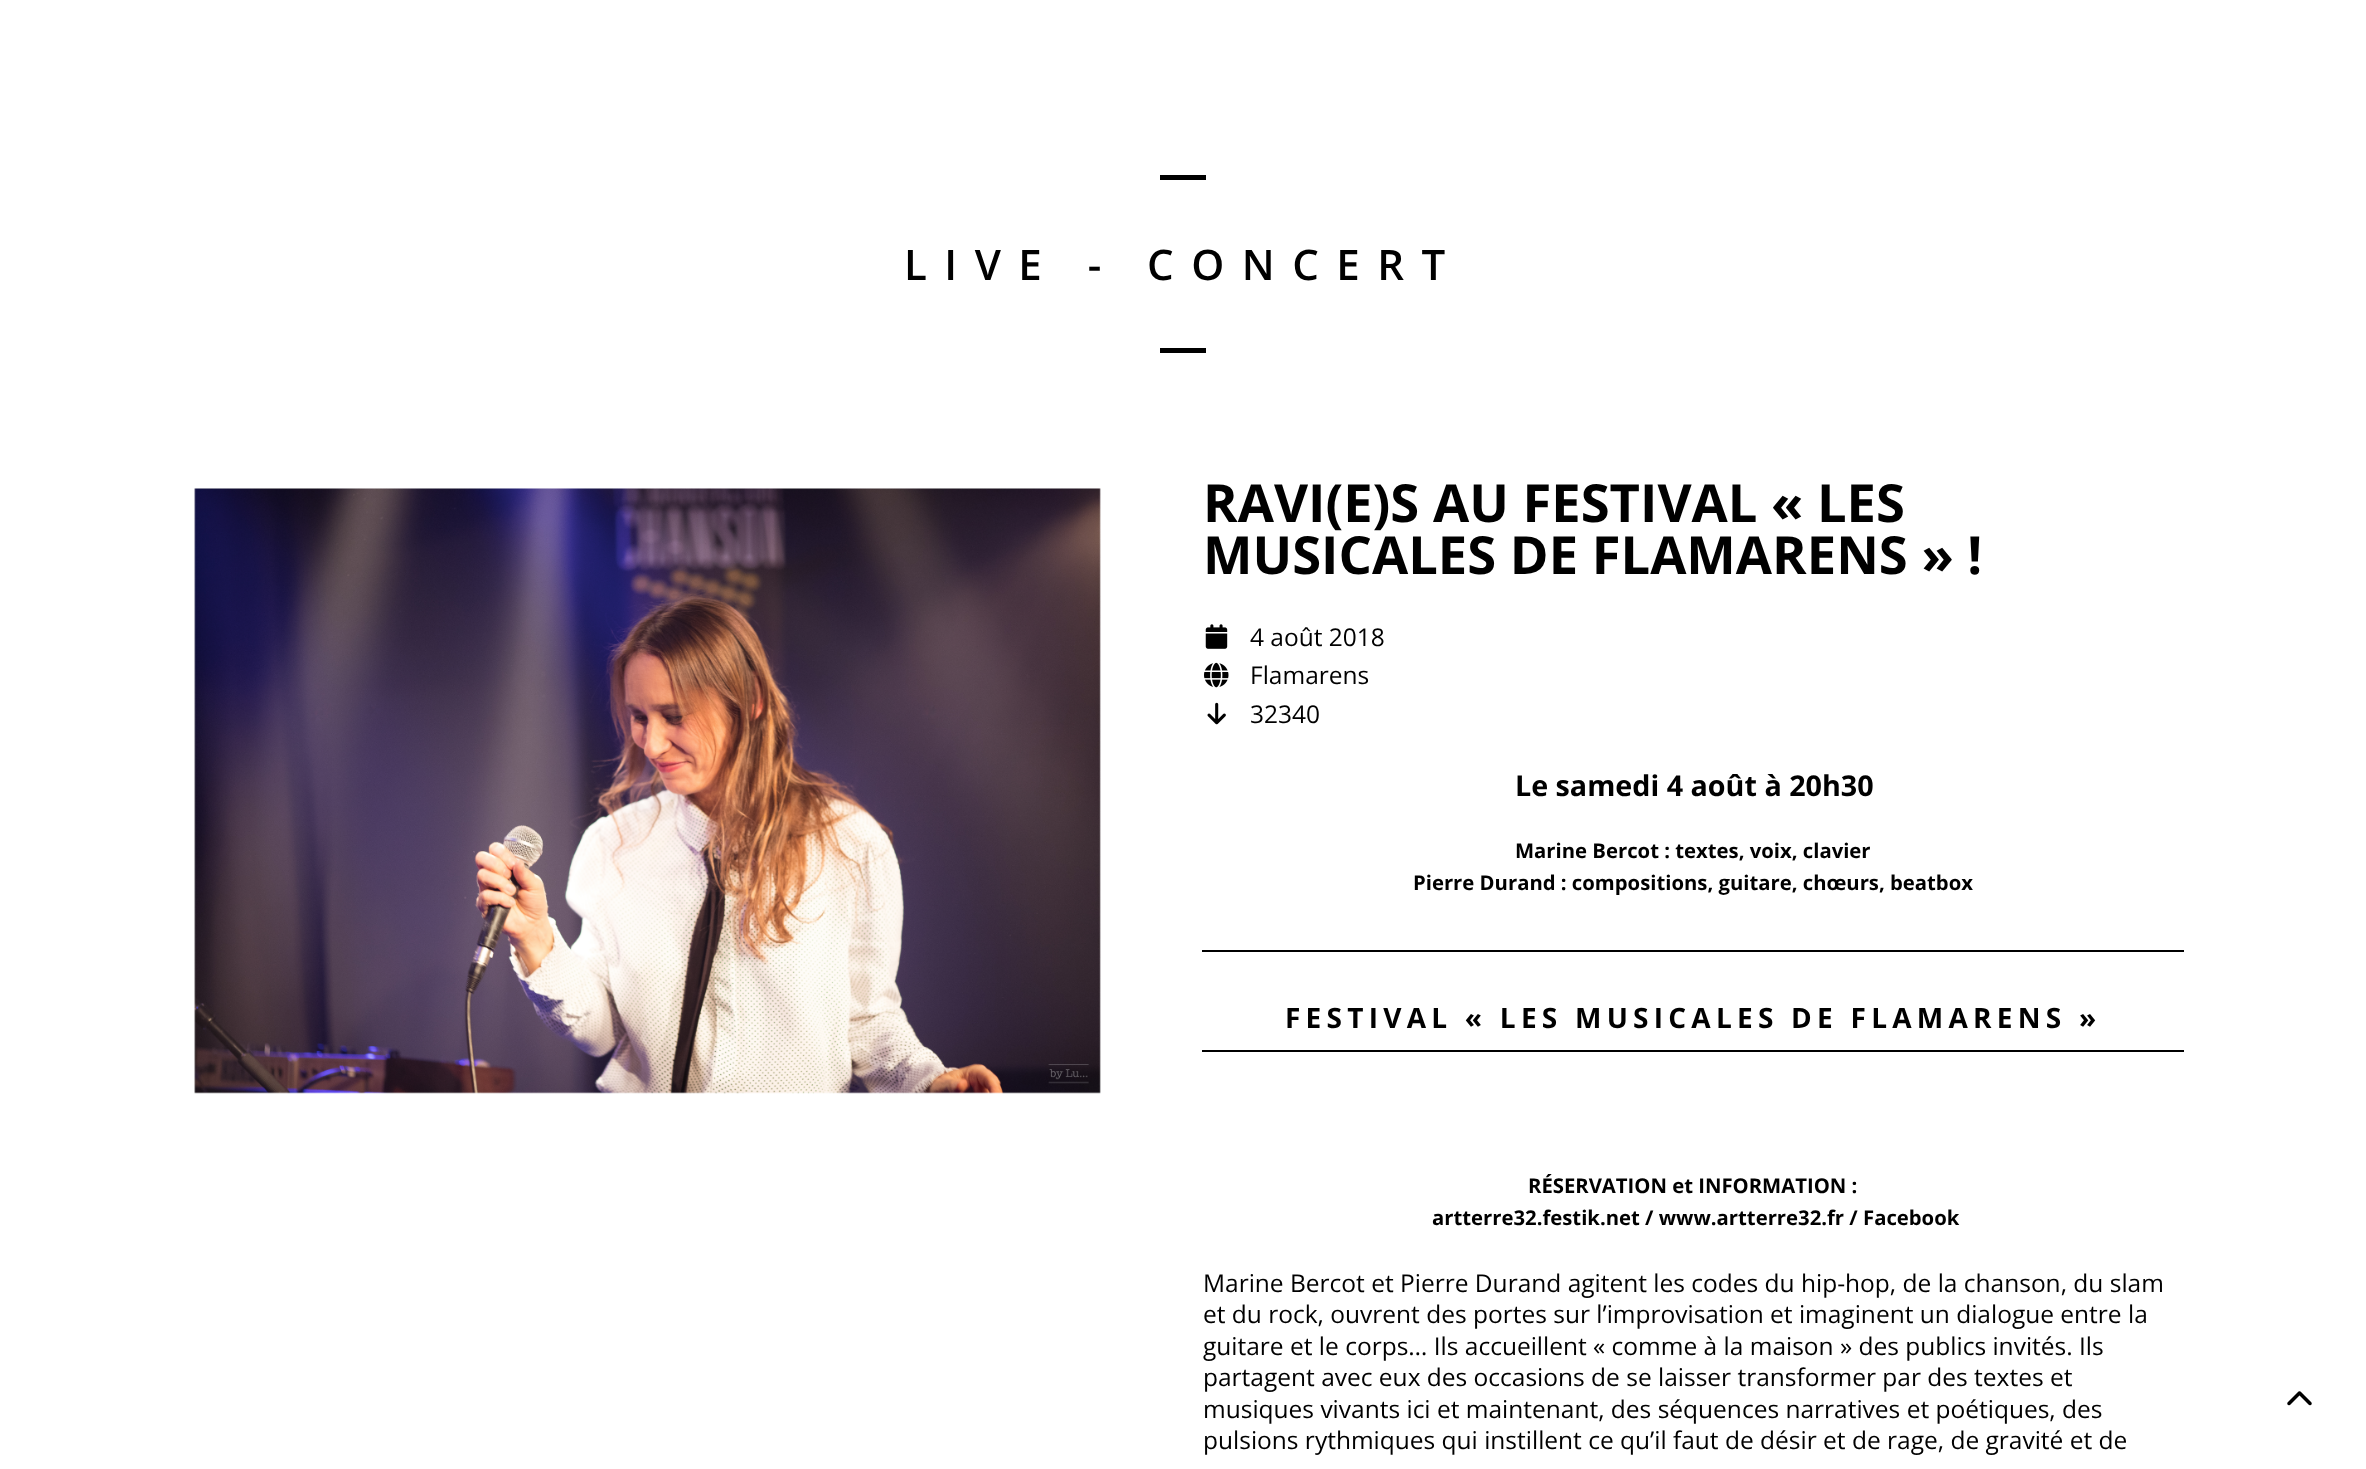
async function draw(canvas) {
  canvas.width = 2366
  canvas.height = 1469
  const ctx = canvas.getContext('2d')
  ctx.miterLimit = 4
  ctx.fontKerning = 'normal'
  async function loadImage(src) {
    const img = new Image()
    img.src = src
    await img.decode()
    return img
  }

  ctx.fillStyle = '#fff'
  ctx.fillRect(0, 0, 2366, 1469)
  ctx.fillStyle = '#000'
  ctx.fillRect(1160, 175, 46, 5)
  ctx.letterSpacing = '17.5px'
  ctx.font = '600 42px Open Sans'
  ctx.fillText('LIVE - CONCERT', 904, 280)
  ctx.fillRect(1160, 348, 46, 5)
  ctx.drawImage(await loadImage('image0.png'), 194, 488, 907, 606)
  ctx.letterSpacing = '0px'
  ctx.font = 'bold 52.5px Open Sans'
  ctx.fillText('RAVI(E)S AU FESTIVAL « LES', 1203, 522)
  ctx.fillText('MUSICALES DE FLAMARENS » !', 1203, 574)
  ctx.drawImage(await loadImage('image1.png'), 1205, 624, 23, 25)
  ctx.font = '24.5px Open Sans'
  ctx.fillText('4 août 2018', 1250, 646)
  ctx.drawImage(await loadImage('image2.png'), 1204, 662, 25, 26)
  ctx.fillText('Flamarens', 1250, 684)
  ctx.drawImage(await loadImage('image3.png'), 1207, 702, 19, 23)
  ctx.fillText('32340', 1250, 723)
  ctx.font = 'bold 28.7px Open Sans'
  ctx.fillText('Le samedi 4 août à 20h30', 1515, 796)
  ctx.font = 'bold 20.3px Open Sans'
  ctx.fillText('Marine Bercot : textes, voix, clavier', 1515, 858)
  ctx.fillText('Pierre Durand : compositions, guitare, chœurs, beatbox', 1413, 890)
  ctx.fillRect(1202, 950, 982, 2)
  ctx.fillRect(1202, 1050, 982, 2)
  ctx.letterSpacing = '5.25px'
  ctx.font = 'bold 28px Open Sans'
  ctx.fillText('FESTIVAL « LES MUSICALES DE FLAMARENS »', 1285, 1028)
  ctx.letterSpacing = '0px'
  ctx.font = 'bold 20.3px Open Sans'
  ctx.fillText('RÉSERVATION et INFORMATION :', 1528, 1193)
  ctx.fillText('artterre32.festik.net / www.artterre32.fr / Facebook', 1432, 1225)
  ctx.font = '24.5px Open Sans'
  ctx.fillText('Marine Bercot et Pierre Durand agitent les codes du hip-hop, de la chanson, du slam', 1203, 1292)
  ctx.fillText('et du rock, ouvrent des portes sur l’improvisation et imaginent un dialogue entre la', 1203, 1323)
  ctx.fillText('guitare et le corps… Ils accueillent « comme à la maison » des publics invités. Ils', 1203, 1355)
  ctx.fillText('partagent avec eux des occasions de se laisser transformer par des textes et', 1203, 1386)
  ctx.fillText('musiques vivants ici et maintenant, des séquences narratives et poétiques, des', 1203, 1418)
  ctx.fillText('pulsions rythmiques qui instillent ce qu’il faut de désir et de rage, de gravité et de', 1203, 1449)
  ctx.drawImage(await loadImage('image4.png'), 2287, 1391, 25, 15)
}

draw(document.querySelector('canvas'))
